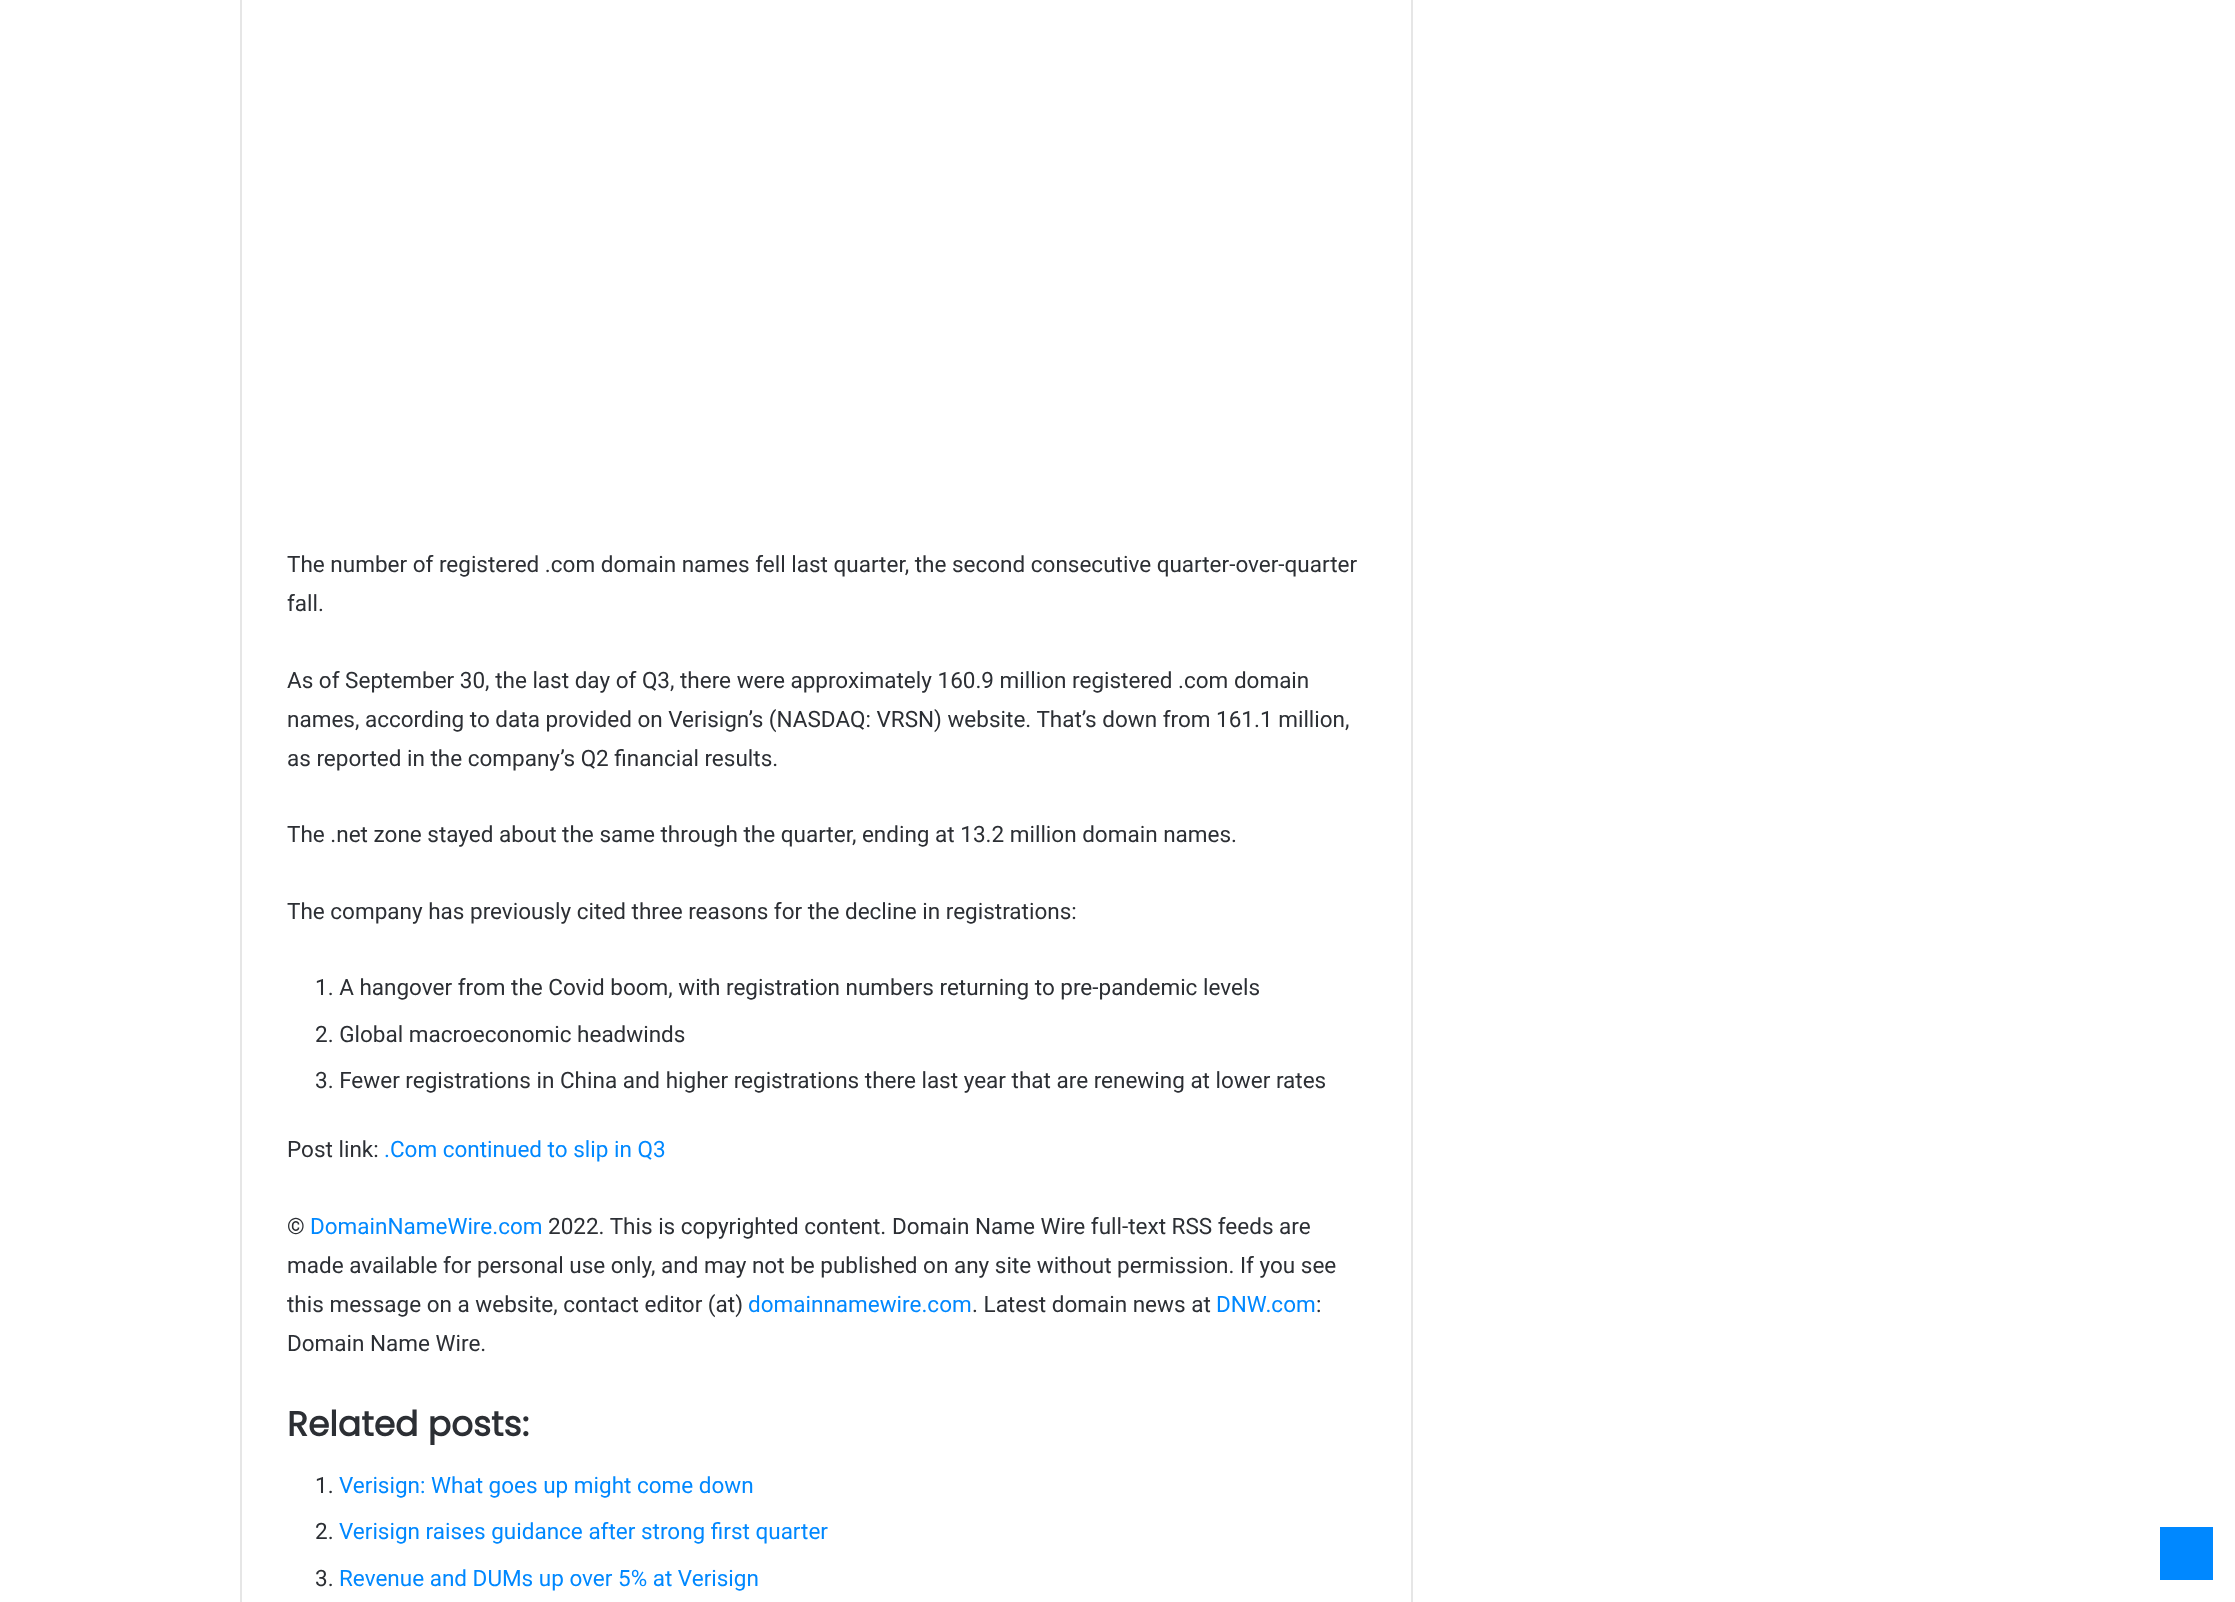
async function draw(canvas) {
  canvas.width = 2235
  canvas.height = 1602
  const ctx = canvas.getContext('2d')
  ctx.miterLimit = 4
  ctx.fontKerning = 'normal'

  ctx.fillStyle = '#fff'
  ctx.fillRect(0, 0, 2235, 1602)
  ctx.strokeStyle = '#e6e6e6'
  ctx.lineWidth = 2
  ctx.strokeRect(241, -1, 1171, 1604)
  ctx.font = '22.5px Roboto'
  ctx.fillStyle = '#2c2f34'
  ctx.fillText('The number of registered .com domain names fell last quarter, the second consecutive quarter-over-quarter', 287, 572)
  ctx.fillText('fall.', 287, 611)
  ctx.fillText('As of September 30, the last day of Q3, there were approximately 160.9 million registered .com domain', 287, 688)
  ctx.fillText('names, according to data provided on Verisign’s (NASDAQ: VRSN) website. That’s down from 161.1 million,', 287, 727)
  ctx.fillText('as reported in the company’s Q2 financial results.', 287, 766)
  ctx.fillText('The .net zone stayed about the same through the quarter, ending at 13.2 million domain names.', 287, 842)
  ctx.fillText('The company has previously cited three reasons for the decline in registrations:', 287, 919)
  ctx.fillText('1. A hangover from the Covid boom, with registration numbers returning to pre-pandemic levels', 315, 995)
  ctx.fillText('2. Global macroeconomic headwinds', 315, 1042)
  ctx.fillText('3. Fewer registrations in China and higher registrations there last year that are renewing at lower rates', 315, 1088)
  ctx.fillText('Post link:', 287, 1157)
  ctx.fillStyle = '#08f'
  ctx.fillText('.Com continued to slip in Q3', 384, 1157)
  ctx.fillStyle = '#2c2f34'
  ctx.fillText('©', 287, 1234)
  ctx.fillStyle = '#08f'
  ctx.fillText('DomainNameWire.com', 310, 1234)
  ctx.fillStyle = '#2c2f34'
  ctx.fillText('2022. This is copyrighted content. Domain Name Wire full-text RSS feeds are', 548, 1234)
  ctx.fillText('made available for personal use only, and may not be published on any site without permission. If you see', 287, 1273)
  ctx.fillText('this message on a website, contact editor (at)', 287, 1312)
  ctx.fillStyle = '#08f'
  ctx.fillText('domainnamewire.com', 748, 1312)
  ctx.fillStyle = '#2c2f34'
  ctx.fillText('. Latest domain news at', 972, 1312)
  ctx.fillStyle = '#08f'
  ctx.fillText('DNW.com', 1216, 1312)
  ctx.fillStyle = '#2c2f34'
  ctx.fillText(':', 1316, 1312)
  ctx.fillText('Domain Name Wire.', 287, 1351)
  ctx.font = 'bold 34.5px Poppins'
  ctx.fillText('Related posts:', 287, 1436)
  ctx.font = '22.5px Roboto'
  ctx.fillText('1.', 315, 1493)
  ctx.fillStyle = '#08f'
  ctx.fillText('Verisign: What goes up might come down', 339, 1493)
  ctx.fillStyle = '#2c2f34'
  ctx.fillText('2.', 315, 1539)
  ctx.fillStyle = '#08f'
  ctx.fillText('Verisign raises guidance after strong first quarter', 339, 1539)
  ctx.fillStyle = '#2c2f34'
  ctx.fillText('3.', 315, 1586)
  ctx.fillStyle = '#08f'
  ctx.fillText('Revenue and DUMs up over 5% at Verisign', 339, 1586)
  ctx.fillRect(2160, 1527, 53, 53)
}

draw(document.querySelector('canvas'))
